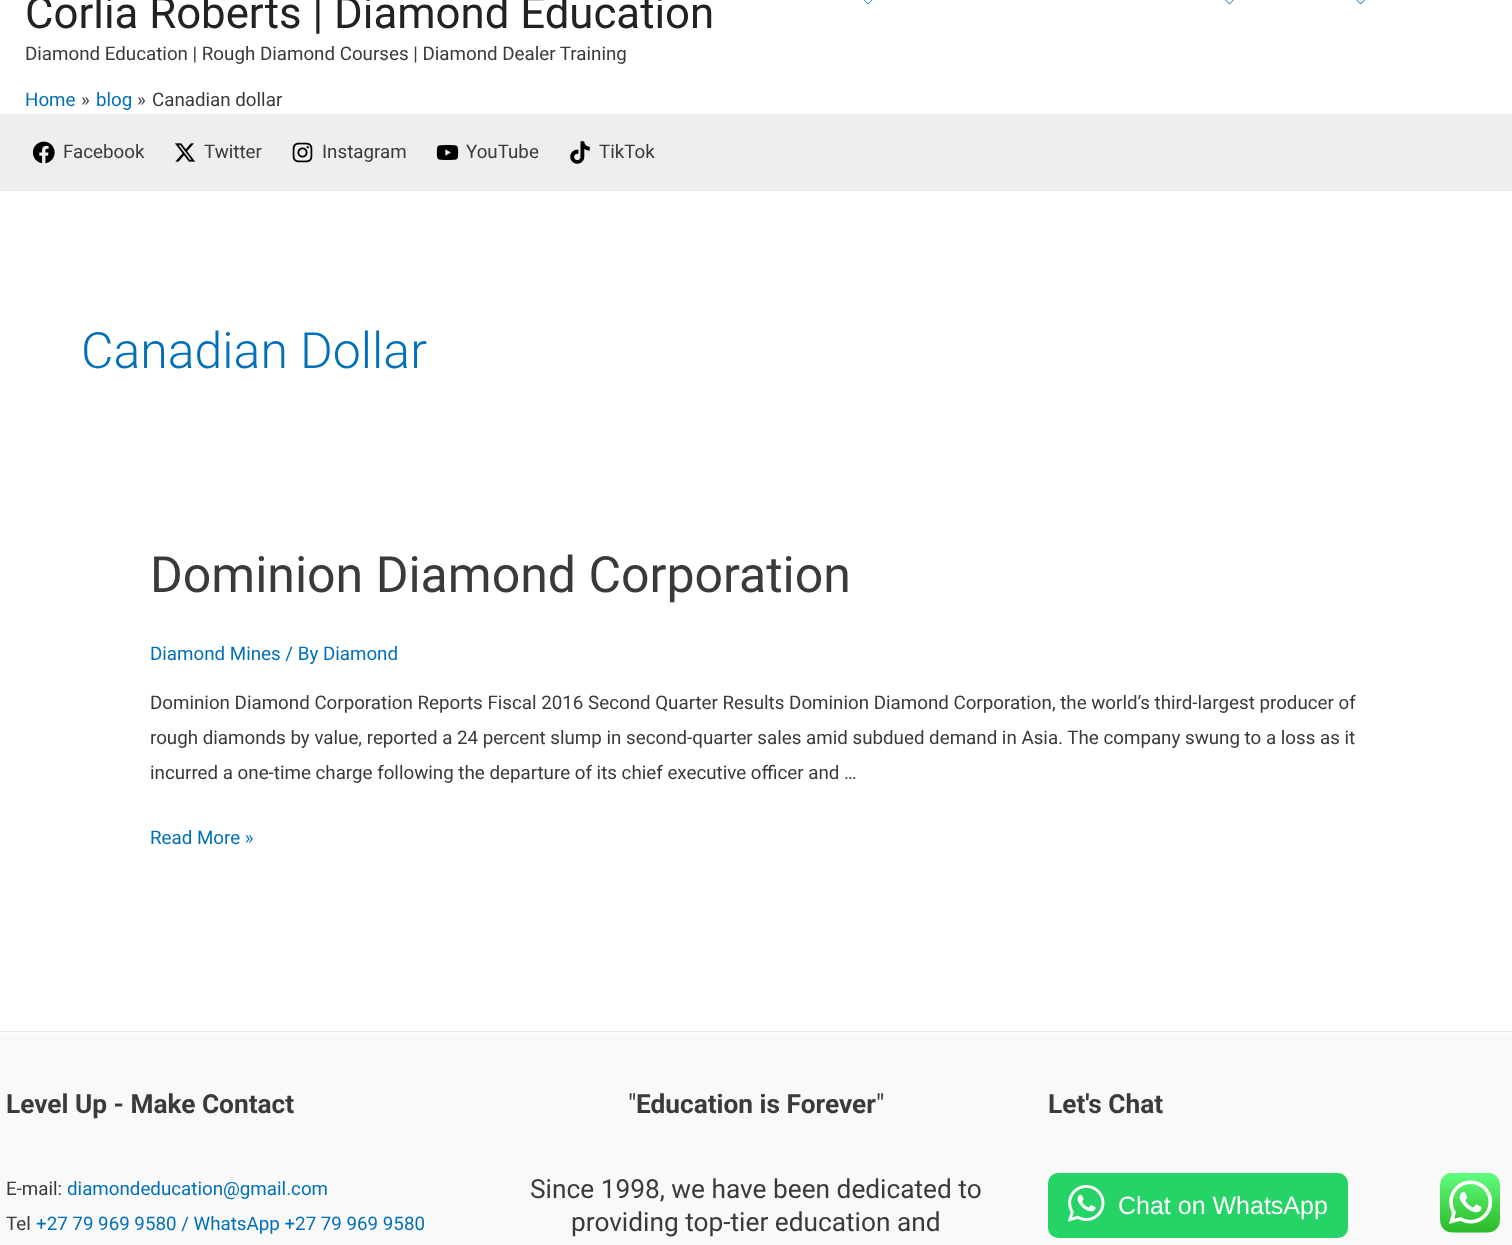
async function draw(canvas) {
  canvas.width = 1512
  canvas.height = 1245
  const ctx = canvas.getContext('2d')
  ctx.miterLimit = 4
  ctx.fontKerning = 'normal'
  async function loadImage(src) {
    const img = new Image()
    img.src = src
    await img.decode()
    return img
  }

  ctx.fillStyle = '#fff'
  ctx.fillRect(0, 0, 1512, 1245)
  ctx.fillStyle = '#eaeaea'
  ctx.fillRect(0, 114, 1512, 1)
  ctx.font = '43.75px Roboto'
  ctx.fillStyle = '#222'
  ctx.fillText('Corlia Roberts | Diamond Education', 25, 28)
  ctx.font = '18.75px Roboto'
  ctx.fillStyle = '#3a3a3a'
  ctx.fillText('Diamond Education | Rough Diamond Courses | Diamond Dealer Training', 25, 60)
  ctx.drawImage(await loadImage('image0.png'), 863, 0, 10, 5)
  ctx.drawImage(await loadImage('image1.png'), 1225, 0, 9, 5)
  ctx.drawImage(await loadImage('image2.png'), 1356, 0, 9, 5)
  ctx.fillStyle = '#0170b9'
  ctx.fillText('Home', 25, 106)
  ctx.fillStyle = '#3a3a3a'
  ctx.fillText('»', 81, 106)
  ctx.fillStyle = '#0170b9'
  ctx.fillText('blog', 96, 106)
  ctx.fillStyle = '#3a3a3a'
  ctx.fillText('»', 137, 106)
  ctx.fillText('Canadian dollar', 152, 106)
  ctx.fillStyle = '#eee'
  ctx.fillRect(0, 115, 1512, 75)
  ctx.fillStyle = '#eaeaea'
  ctx.fillRect(0, 190, 1512, 1)
  ctx.drawImage(await loadImage('image3.png'), 33, 141, 22, 23)
  ctx.fillStyle = '#3a3a3a'
  ctx.fillText('Facebook', 63, 158)
  ctx.drawImage(await loadImage('image4.png'), 175, 143, 20, 19)
  ctx.fillText('Twitter', 204, 158)
  ctx.drawImage(await loadImage('image5.png'), 292, 142, 21, 21)
  ctx.fillText('Instagram', 322, 158)
  ctx.drawImage(await loadImage('image6.png'), 436, 145, 23, 15)
  ctx.fillText('YouTube', 466, 158)
  ctx.drawImage(await loadImage('image7.png'), 570, 141, 20, 23)
  ctx.fillText('TikTok', 599, 158)
  ctx.font = '300 50px Roboto'
  ctx.fillStyle = '#0170b9'
  ctx.fillText('Canadian Dollar', 81, 368)
  ctx.font = '50px Roboto'
  ctx.fillStyle = '#3a3a3a'
  ctx.fillText('Dominion Diamond Corporation', 150, 592)
  ctx.font = '18.75px Roboto'
  ctx.fillStyle = '#0170b9'
  ctx.fillText('Diamond Mines / By Diamond', 150, 660)
  ctx.fillStyle = '#3a3a3a'
  ctx.fillText('Dominion Diamond Corporation Reports Fiscal 2016 Second Quarter Results Dominion Diamond Corporation, the world’s third-largest producer of', 150, 709)
  ctx.fillText('rough diamonds by value, reported a 24 percent slump in second-quarter sales amid subdued demand in Asia. The company swung to a loss as it', 150, 744)
  ctx.fillText('incurred a one-time charge following the departure of its chief executive officer and …', 150, 779)
  ctx.fillStyle = '#0170b9'
  ctx.fillText('Read More »', 150, 844)
  ctx.fillStyle = '#f9f9f9'
  ctx.fillRect(0, 1033, 1512, 212)
  ctx.fillStyle = '#e6e6e6'
  ctx.fillRect(0, 1031, 1512, 1)
  ctx.font = 'bold 26.25px Roboto'
  ctx.fillStyle = '#3a3a3a'
  ctx.fillText('Level Up - Make Contact', 6, 1113)
  ctx.font = '18.75px Roboto'
  ctx.fillText('E-mail:', 6, 1195)
  ctx.fillStyle = '#0170b9'
  ctx.fillText('diamondeducation@gmail.com', 67, 1195)
  ctx.fillStyle = '#3a3a3a'
  ctx.fillText('Tel', 6, 1230)
  ctx.fillStyle = '#0170b9'
  ctx.fillText('+27 79 969 9580 / WhatsApp +27 79 969 9580', 36, 1230)
  ctx.font = '26.25px Roboto'
  ctx.fillStyle = '#3a3a3a'
  ctx.fillText('"', 628, 1113)
  ctx.font = 'bold 26.25px Roboto'
  ctx.fillText('Education is Forever', 636, 1113)
  ctx.font = '26.25px Roboto'
  ctx.fillText('"', 876, 1113)
  ctx.fillText('Since 1998, we have been dedicated to', 530, 1198)
  ctx.fillText('providing top-tier education and', 571, 1231)
  ctx.font = 'bold 26.25px Roboto'
  ctx.fillText('Let\'s Chat', 1048, 1113)
  ctx.fillStyle = '#25d366'
  ctx.beginPath()
  ctx.roundRect(1048, 1173, 300, 65, 10)
  ctx.fill()
  ctx.drawImage(await loadImage('image8.png'), 1068, 1185, 37, 37)
  ctx.font = '25px Liberation Sans'
  ctx.fillStyle = '#fff'
  ctx.fillText('Chat on WhatsApp', 1118, 1214)
  ctx.drawImage(await loadImage('image9.png'), 1440, 1173, 60, 60)
}

draw(document.querySelector('canvas'))
